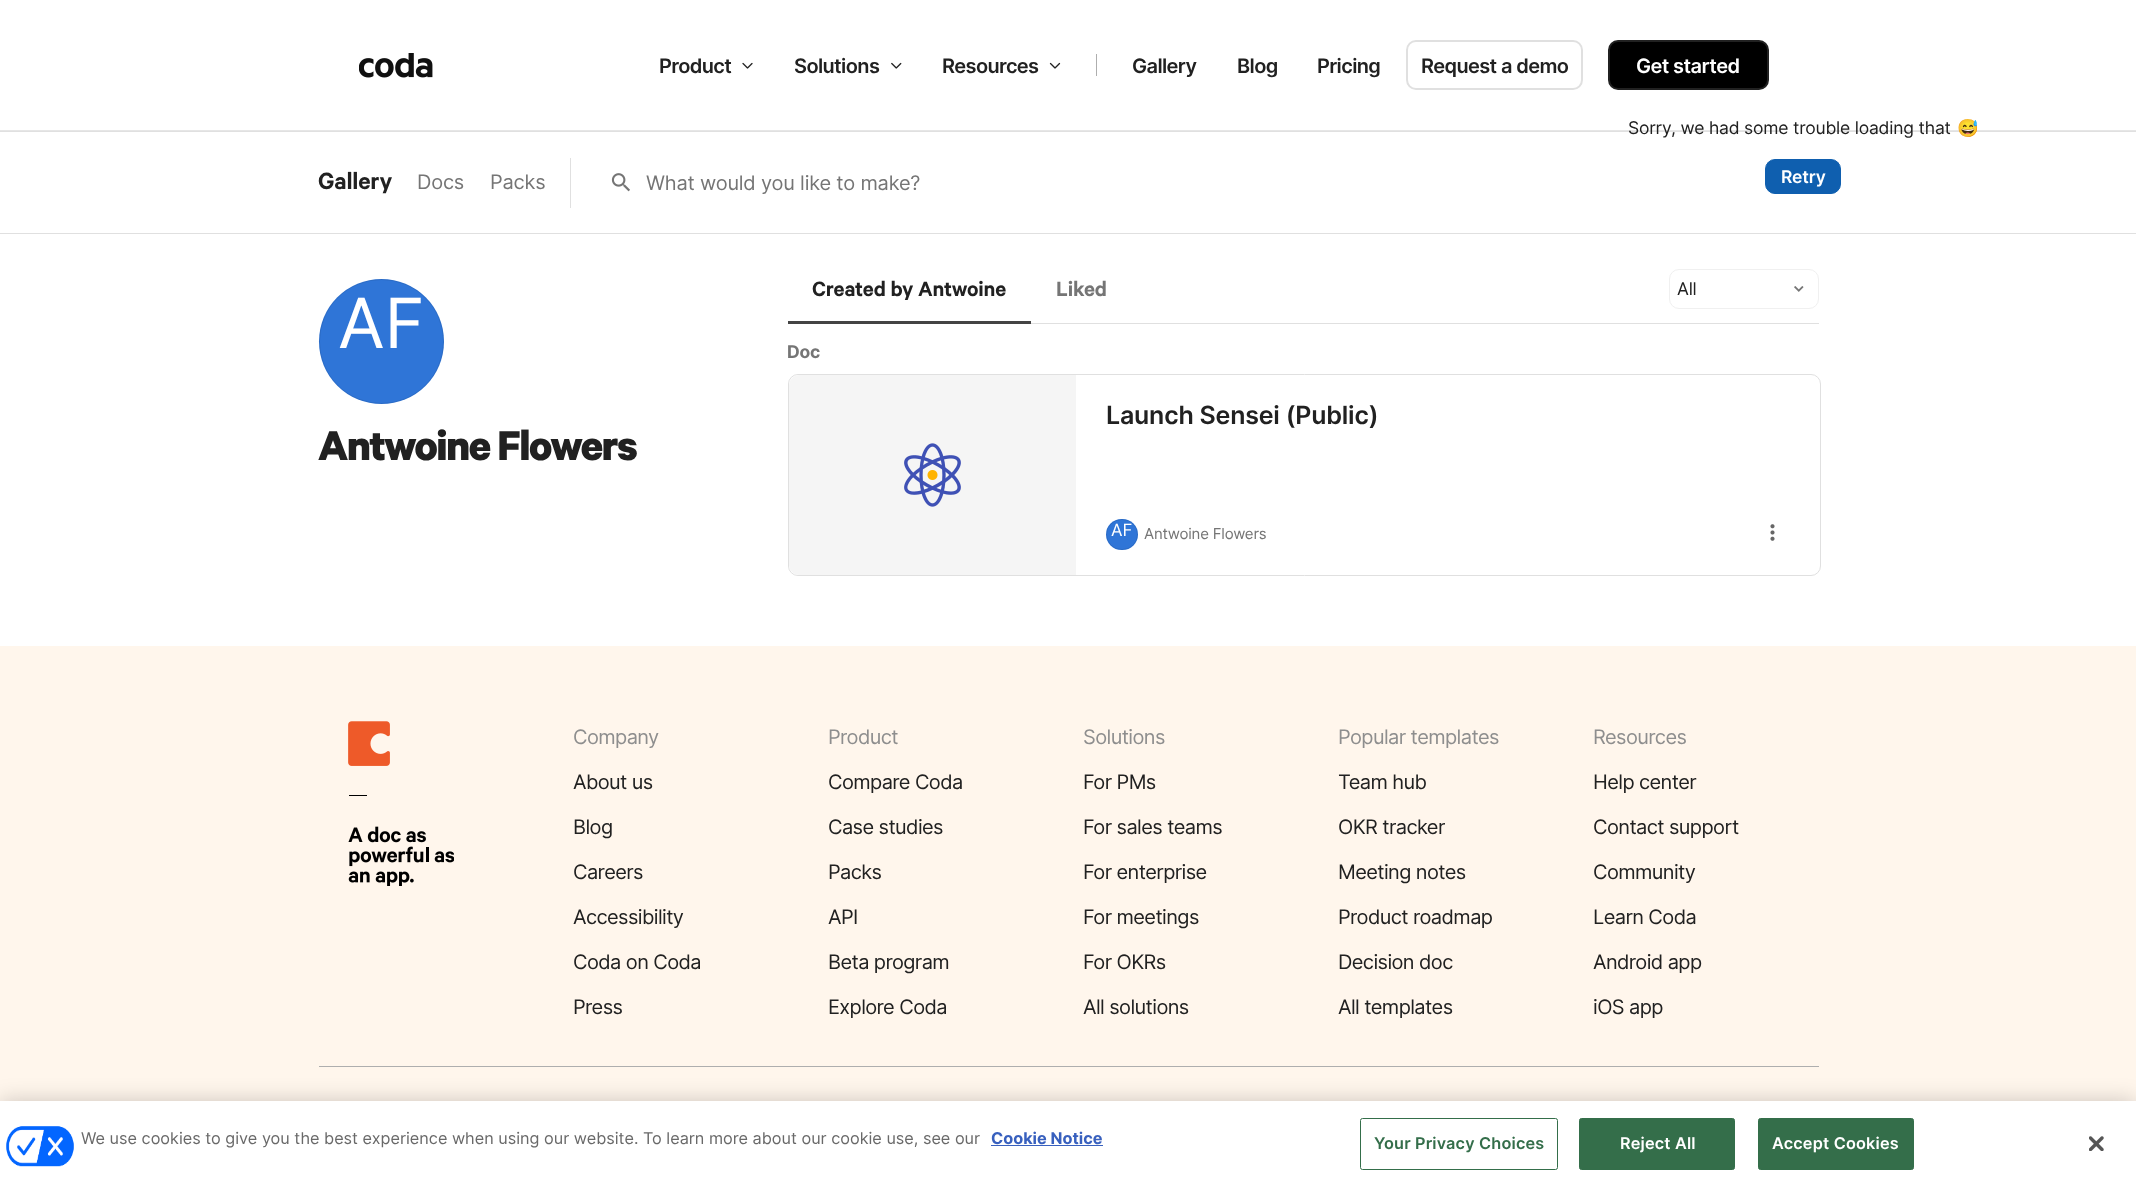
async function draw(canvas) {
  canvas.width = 2136
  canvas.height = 1189
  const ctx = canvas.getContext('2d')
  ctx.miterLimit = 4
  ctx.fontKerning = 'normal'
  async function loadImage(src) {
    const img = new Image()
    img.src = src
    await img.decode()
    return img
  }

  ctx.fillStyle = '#fff'
  ctx.fillRect(0, 0, 2136, 1189)
  ctx.fillStyle = '#e6e6e6'
  ctx.fillRect(0, 130, 2136, 1)
  ctx.drawImage(await loadImage('image0.png'), 359, 53, 74, 25)
  ctx.letterSpacing = '-0.6px'
  ctx.font = '600 20px Inter'
  ctx.fillStyle = '#212121'
  ctx.fillText('Product', 659, 73)
  ctx.drawImage(await loadImage('image1.png'), 742, 62, 11, 7)
  ctx.fillText('Solutions', 794, 73)
  ctx.drawImage(await loadImage('image2.png'), 891, 62, 11, 7)
  ctx.fillText('Resources', 942, 73)
  ctx.drawImage(await loadImage('image3.png'), 1049, 62, 12, 7)
  ctx.fillStyle = '#aeaeae'
  ctx.fillRect(1096, 54, 1, 22)
  ctx.fillStyle = '#212121'
  ctx.fillText('Gallery', 1132, 73)
  ctx.fillText('Blog', 1237, 73)
  ctx.fillText('Pricing', 1317, 73)
  ctx.beginPath()
  ctx.roundRect(1407, 41, 175, 48, 9)
  ctx.strokeStyle = '#e0e0e0'
  ctx.lineWidth = 2
  ctx.stroke()
  ctx.fillText('Request a demo', 1421, 73)
  ctx.fillStyle = '#000'
  ctx.beginPath()
  ctx.roundRect(1609, 41, 159, 48, 9)
  ctx.fill()
  ctx.strokeStyle = '#212121'
  ctx.stroke()
  ctx.fillStyle = '#fff'
  ctx.fillText('Get started', 1636, 73)
  ctx.fillStyle = '#e0e0e0'
  ctx.fillRect(0, 131, 2136, 1)
  ctx.fillStyle = '#fff'
  ctx.beginPath()
  ctx.roundRect(1779, 90, 50, 129, 8)
  ctx.fill()
  ctx.letterSpacing = '-0.2px'
  ctx.font = '17.5px Inter'
  ctx.fillStyle = '#212121'
  ctx.fillText('Sorry, we had some trouble loading that', 1628, 134)
  ctx.font = '17.5px Noto Color Emoji'
  ctx.fillText('😅', 1957, 134)
  ctx.fillStyle = '#0f5faf'
  ctx.beginPath()
  ctx.roundRect(1765.5, 159.5, 75, 34, 9.5)
  ctx.fill()
  ctx.strokeStyle = '#0f5faf'
  ctx.lineWidth = 1
  ctx.stroke()
  ctx.font = '600 17.5px Inter'
  ctx.fillStyle = '#fff'
  ctx.fillText('Retry', 1781, 183)
  ctx.fillStyle = '#e0e0e0'
  ctx.fillRect(0, 233, 2136, 1)
  ctx.font = '600 22.5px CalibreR'
  ctx.fillStyle = '#212121'
  ctx.fillText('Gallery', 318, 189)
  ctx.font = '20px Inter'
  ctx.fillStyle = '#757575'
  ctx.fillText('Docs', 417, 189)
  ctx.fillText('Packs', 490, 189)
  ctx.fillStyle = '#e0e0e0'
  ctx.fillRect(570, 158, 1, 50)
  ctx.drawImage(await loadImage('image4.png'), 611, 173, 19, 19)
  ctx.fillStyle = '#757575'
  ctx.fillText('What would you like to make?', 646, 190)
  ctx.fillStyle = '#2f75d7'
  ctx.beginPath()
  ctx.arc(381.5, 341.5, 62.5, 0, 2 * Math.PI)
  ctx.fill()
  ctx.beginPath()
  ctx.arc(381.5, 341.5, 62, 0, 2 * Math.PI)
  ctx.strokeStyle = '#00000014'
  ctx.stroke()
  ctx.font = '69px Inter'
  ctx.fillStyle = '#fff'
  ctx.fillText('AF', 338, 348)
  ctx.letterSpacing = '-1.6px'
  ctx.font = 'bold 40px CalibreR'
  ctx.fillStyle = '#212121'
  ctx.fillText('Antwoine Flowers', 318, 460)
  ctx.fillStyle = '#e0e0e0'
  ctx.fillRect(1031, 323, 788, 1)
  ctx.fillStyle = '#444'
  ctx.fillRect(788, 321, 243, 3)
  ctx.letterSpacing = '-0.2px'
  ctx.font = '600 20px CalibreR'
  ctx.fillStyle = '#212121'
  ctx.fillText('Created by Antwoine', 812, 296)
  ctx.fillStyle = '#757575'
  ctx.fillText('Liked', 1056, 296)
  ctx.font = 'bold 17.5px Inter'
  ctx.fillText('Doc', 787, 358)
  ctx.beginPath()
  ctx.roundRect(788.5, 374.5, 1032, 201, 9.5)
  ctx.strokeStyle = '#e0e0e0'
  ctx.stroke()
  ctx.fillStyle = '#f5f5f5'
  ctx.beginPath()
  ctx.roundRect(789, 375, 287, 200, [10, 0, 0, 10])
  ctx.fill()
  ctx.drawImage(await loadImage('image5.png'), 904, 443, 57, 64)
  ctx.font = '600 25px Inter'
  ctx.fillStyle = '#212121'
  ctx.fillText('Launch Sensei (Public)', 1106, 424)
  ctx.fillStyle = '#2f75d7'
  ctx.beginPath()
  ctx.roundRect(1106, 519, 32, 31, 15.5)
  ctx.fill()
  ctx.beginPath()
  ctx.roundRect(1106.5, 519.5, 31, 30, 15)
  ctx.strokeStyle = '#00000014'
  ctx.stroke()
  ctx.letterSpacing = '0px'
  ctx.font = '17px Inter'
  ctx.fillStyle = '#fff'
  ctx.fillText('AF', 1111, 536)
  ctx.letterSpacing = '-0.2px'
  ctx.font = '15px Inter'
  ctx.fillStyle = '#757575'
  ctx.fillText('Antwoine Flowers', 1144, 539)
  ctx.drawImage(await loadImage('image6.png'), 1770, 524, 5, 17)
  ctx.beginPath()
  ctx.roundRect(1669.5, 269.5, 149, 39, 9.5)
  ctx.strokeStyle = '#f0f0f0'
  ctx.stroke()
  ctx.font = '17.5px Inter'
  ctx.fillStyle = '#212121'
  ctx.fillText('All', 1677, 295)
  ctx.drawImage(await loadImage('image7.png'), 1794, 286, 10, 6)
  ctx.fillStyle = '#fff6ec'
  ctx.fillRect(0, 646, 2136, 455)
  ctx.drawImage(await loadImage('image8.png'), 348, 721, 106, 165)
  ctx.letterSpacing = '-0.6px'
  ctx.font = '20px Inter'
  ctx.fillStyle = '#8e8e8e'
  ctx.fillText('Company', 573, 744)
  ctx.fillStyle = '#212121'
  ctx.fillText('About us', 573, 789)
  ctx.fillText('Blog', 573, 834)
  ctx.fillText('Careers', 573, 879)
  ctx.fillText('Accessibility', 573, 924)
  ctx.fillText('Coda on Coda', 573, 969)
  ctx.fillText('Press', 573, 1014)
  ctx.fillStyle = '#8e8e8e'
  ctx.fillText('Product', 828, 744)
  ctx.fillStyle = '#212121'
  ctx.fillText('Compare Coda', 828, 789)
  ctx.fillText('Case studies', 828, 834)
  ctx.fillText('Packs', 828, 879)
  ctx.fillText('API', 828, 924)
  ctx.fillText('Beta program', 828, 969)
  ctx.fillText('Explore Coda', 828, 1014)
  ctx.fillStyle = '#8e8e8e'
  ctx.fillText('Solutions', 1083, 744)
  ctx.fillStyle = '#212121'
  ctx.fillText('For PMs', 1083, 789)
  ctx.fillText('For sales teams', 1083, 834)
  ctx.fillText('For enterprise', 1083, 879)
  ctx.fillText('For meetings', 1083, 924)
  ctx.fillText('For OKRs', 1083, 969)
  ctx.fillText('All solutions', 1083, 1014)
  ctx.fillStyle = '#8e8e8e'
  ctx.fillText('Popular templates', 1338, 744)
  ctx.fillStyle = '#212121'
  ctx.fillText('Team hub', 1338, 789)
  ctx.fillText('OKR tracker', 1338, 834)
  ctx.fillText('Meeting notes', 1338, 879)
  ctx.fillText('Product roadmap', 1338, 924)
  ctx.fillText('Decision doc', 1338, 969)
  ctx.fillText('All templates', 1338, 1014)
  ctx.fillStyle = '#8e8e8e'
  ctx.fillText('Resources', 1593, 744)
  ctx.fillStyle = '#212121'
  ctx.fillText('Help center', 1593, 789)
  ctx.fillText('Contact support', 1593, 834)
  ctx.fillText('Community', 1593, 879)
  ctx.fillText('Learn Coda', 1593, 924)
  ctx.fillText('Android app', 1593, 969)
  ctx.fillText('iOS app', 1593, 1014)
  ctx.fillStyle = '#aeaeae'
  ctx.fillRect(319, 1066, 1500, 1)
  ctx.fillStyle = '#00000033'
  ctx.filter = 'blur(11px)'
  ctx.beginPath()
  ctx.rect(0, 1101, 2136, 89)
  ctx.fill()
  ctx.filter = 'none'
  ctx.fillStyle = '#fff'
  ctx.fillRect(0, 1101, 2136, 88)
  ctx.drawImage(await loadImage('image9.png'), 6, 1126, 68, 41)
  ctx.letterSpacing = '0px'
  ctx.font = '16.25px Inter'
  ctx.fillStyle = '#696969'
  ctx.fillText('We use cookies to give you the best experience when using our website. To learn more about our cookie use, see our', 81, 1144)
  ctx.font = 'bold 16.25px Inter'
  ctx.fillStyle = '#3860be'
  ctx.fillText('Cookie Notice', 991, 1144)
  ctx.fillRect(991, 1145, 112, 1)
  ctx.beginPath()
  ctx.roundRect(1360.5, 1118.5, 197, 51, 2)
  ctx.strokeStyle = '#346e4a'
  ctx.stroke()
  ctx.letterSpacing = '0.2px'
  ctx.font = '600 16.25px Inter'
  ctx.fillStyle = '#346e4a'
  ctx.fillText('Your Privacy Choices', 1374, 1149)
  ctx.beginPath()
  ctx.roundRect(1579.5, 1118.5, 155, 51, 2)
  ctx.fill()
  ctx.stroke()
  ctx.fillStyle = '#fff'
  ctx.fillText('Reject All', 1620, 1149)
  ctx.fillStyle = '#346e4a'
  ctx.beginPath()
  ctx.roundRect(1758.5, 1118.5, 155, 51, 2)
  ctx.fill()
  ctx.stroke()
  ctx.fillStyle = '#fff'
  ctx.fillText('Accept Cookies', 1772, 1149)
  ctx.drawImage(await loadImage('image10.png'), 2089, 1136, 15, 15)
}

draw(document.querySelector('canvas'))
